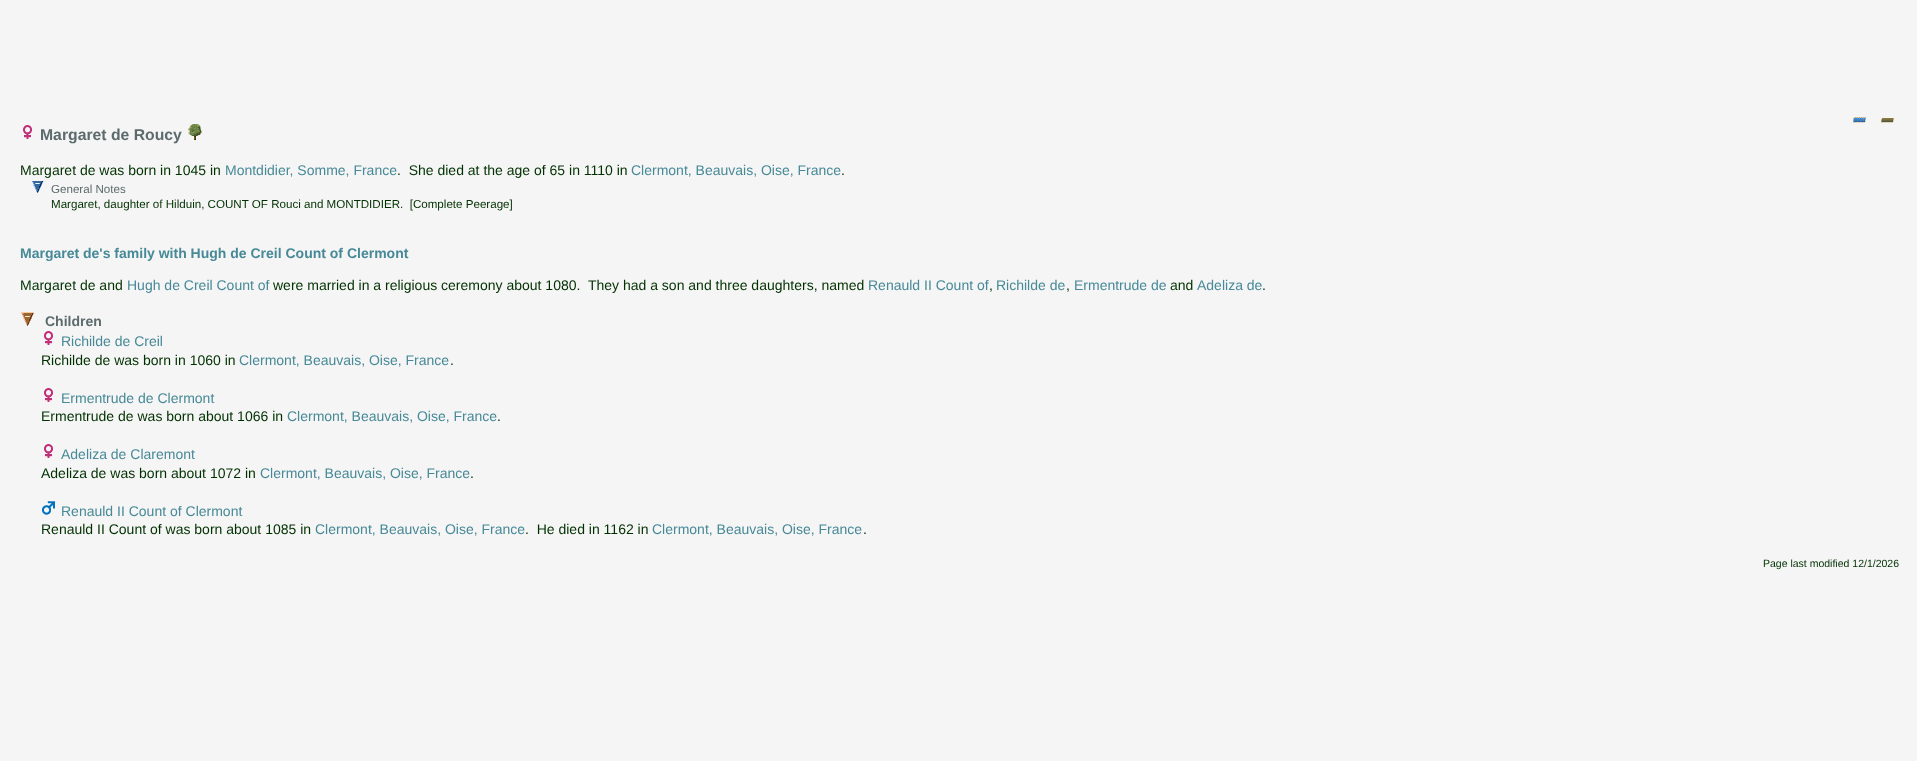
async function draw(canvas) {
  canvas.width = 1917
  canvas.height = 761
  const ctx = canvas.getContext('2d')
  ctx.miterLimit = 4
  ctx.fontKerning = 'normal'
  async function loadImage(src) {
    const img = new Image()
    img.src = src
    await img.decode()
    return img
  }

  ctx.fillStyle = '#f5f5f5'
  ctx.fillRect(0, 0, 1917, 761)
  ctx.drawImage(await loadImage('image0.png'), 1853, 117, 13, 6)
  ctx.drawImage(await loadImage('image1.png'), 1881, 118, 13, 5)
  ctx.drawImage(await loadImage('image2.png'), 23, 125, 9, 14)
  ctx.font = 'bold 15.75px Liberation Sans'
  ctx.fillStyle = '#5d6b6c'
  ctx.fillText('Margaret de Roucy', 40, 140)
  ctx.drawImage(await loadImage('image3.png'), 188, 124, 14, 16)
  ctx.font = '14px Liberation Sans'
  ctx.fillStyle = '#003000'
  ctx.fillText('Margaret de was born in 1045 in', 20, 175)
  ctx.fillStyle = '#478997'
  ctx.fillText('Montdidier, Somme, France', 225, 175)
  ctx.fillStyle = '#003000'
  ctx.fillText('.  She died at the age of 65 in 1110 in', 397, 175)
  ctx.fillStyle = '#478997'
  ctx.fillText('Clermont, Beauvais, Oise, France', 631, 175)
  ctx.fillStyle = '#003000'
  ctx.fillText('.', 841, 175)
  ctx.drawImage(await loadImage('image4.png'), 32, 181, 12, 12)
  ctx.font = '11.6px Liberation Sans'
  ctx.fillStyle = '#5d6b6c'
  ctx.fillText('General Notes', 51, 193)
  ctx.fillStyle = '#003000'
  ctx.fillText('Margaret, daughter of Hilduin, COUNT OF Rouci and MONTDIDIER.  [Complete Peerage]', 51, 208)
  ctx.font = 'bold 14px Liberation Sans'
  ctx.fillStyle = '#478997'
  ctx.fillText('Margaret de\'s family with Hugh de Creil Count of Clermont', 20, 258)
  ctx.font = '14px Liberation Sans'
  ctx.fillStyle = '#003000'
  ctx.fillText('‌Margaret de and', 20, 290)
  ctx.fillStyle = '#478997'
  ctx.fillText('Hugh de Creil Count of', 127, 290)
  ctx.fillStyle = '#003000'
  ctx.fillText('were married in a religious ceremony about 1080.  They had a son and three daughters, named', 273, 290)
  ctx.fillStyle = '#478997'
  ctx.fillText('Renauld II Count of', 868, 290)
  ctx.fillStyle = '#003000'
  ctx.fillText(',', 989, 290)
  ctx.fillStyle = '#478997'
  ctx.fillText('Richilde de', 996, 290)
  ctx.fillStyle = '#003000'
  ctx.fillText(',', 1066, 290)
  ctx.fillStyle = '#478997'
  ctx.fillText('Ermentrude de', 1074, 290)
  ctx.fillStyle = '#003000'
  ctx.fillText('and', 1170, 290)
  ctx.fillStyle = '#478997'
  ctx.fillText('Adeliza de', 1197, 290)
  ctx.fillStyle = '#003000'
  ctx.fillText('.', 1262, 290)
  ctx.drawImage(await loadImage('image5.png'), 21, 312, 13, 14)
  ctx.font = 'bold 14px Liberation Sans'
  ctx.fillStyle = '#5d6b6c'
  ctx.fillText('Children', 45, 326)
  ctx.drawImage(await loadImage('image2.png'), 44, 331, 9, 14)
  ctx.font = '14px Liberation Sans'
  ctx.fillStyle = '#478997'
  ctx.fillText('Richilde de Creil', 61, 346)
  ctx.fillStyle = '#003000'
  ctx.fillText('Richilde de was born in 1060 in', 41, 365)
  ctx.fillStyle = '#478997'
  ctx.fillText('Clermont, Beauvais, Oise, France', 239, 365)
  ctx.fillStyle = '#003000'
  ctx.fillText('.', 450, 365)
  ctx.drawImage(await loadImage('image2.png'), 44, 388, 9, 14)
  ctx.fillStyle = '#478997'
  ctx.fillText('Ermentrude de Clermont', 61, 403)
  ctx.fillStyle = '#003000'
  ctx.fillText('Ermentrude de was born about 1066 in', 41, 421)
  ctx.fillStyle = '#478997'
  ctx.fillText('Clermont, Beauvais, Oise, France', 287, 421)
  ctx.fillStyle = '#003000'
  ctx.fillText('.', 497, 421)
  ctx.drawImage(await loadImage('image2.png'), 44, 444, 9, 14)
  ctx.fillStyle = '#478997'
  ctx.fillText('Adeliza de Claremont', 61, 459)
  ctx.fillStyle = '#003000'
  ctx.fillText('Adeliza de was born about 1072 in', 41, 478)
  ctx.fillStyle = '#478997'
  ctx.fillText('Clermont, Beauvais, Oise, France', 260, 478)
  ctx.fillStyle = '#003000'
  ctx.fillText('.', 470, 478)
  ctx.drawImage(await loadImage('image6.png'), 42, 501, 13, 14)
  ctx.fillStyle = '#478997'
  ctx.fillText('Renauld II Count of Clermont', 61, 516)
  ctx.fillStyle = '#003000'
  ctx.fillText('Renauld II Count of was born about 1085 in', 41, 534)
  ctx.fillStyle = '#478997'
  ctx.fillText('Clermont, Beauvais, Oise, France', 315, 534)
  ctx.fillStyle = '#003000'
  ctx.fillText('.  He died in 1162 in', 525, 534)
  ctx.fillStyle = '#478997'
  ctx.fillText('Clermont, Beauvais, Oise, France', 652, 534)
  ctx.fillStyle = '#003000'
  ctx.fillText('.', 863, 534)
  ctx.font = '10.5px Liberation Sans'
  ctx.fillText('Page last modified 12/1/2026', 1763, 567)
}

draw(document.querySelector('canvas'))
